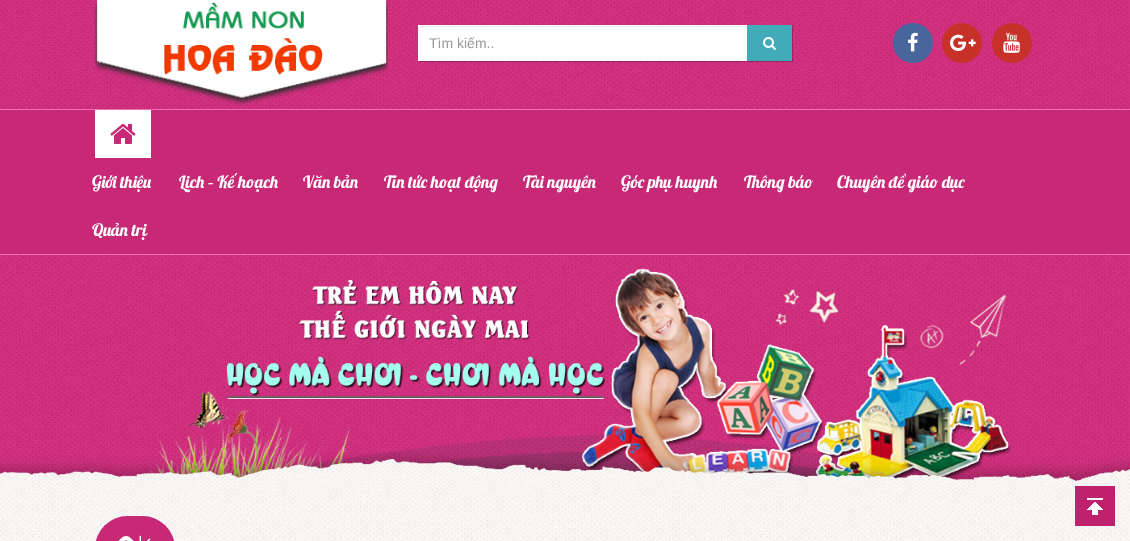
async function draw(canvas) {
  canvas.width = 1130
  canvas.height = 541
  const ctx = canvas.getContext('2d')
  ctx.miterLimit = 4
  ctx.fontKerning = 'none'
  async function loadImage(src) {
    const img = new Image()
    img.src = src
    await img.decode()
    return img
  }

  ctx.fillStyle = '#fff'
  ctx.fillRect(0, 0, 1130, 541)
  ctx.drawImage(await loadImage('image0.png'), 0, 496, 1130, 45)
  ctx.drawImage(await loadImage('image1.png'), 0, 0, 1130, 109)
  ctx.drawImage(await loadImage('image2.png'), 95, 0, 293, 106)
  ctx.fillStyle = '#0000003d'
  ctx.filter = 'blur(0.5px)'
  ctx.beginPath()
  ctx.rect(419, 26, 374, 36)
  ctx.fill()
  ctx.filter = 'none'
  ctx.fillStyle = '#fff'
  ctx.fillRect(418, 25, 329, 36)
  ctx.fillStyle = '#ececec'
  ctx.fillRect(419, 26, 328, 1)
  ctx.font = '14px Liberation Sans'
  ctx.fillStyle = '#999'
  ctx.fillText('Tìm kiếm..', 429, 48)
  ctx.fillStyle = '#41abba'
  ctx.fillRect(747, 25, 45, 36)
  ctx.drawImage(await loadImage('image3.png'), 763, 37, 13, 13)
  ctx.fillStyle = '#48659c'
  ctx.beginPath()
  ctx.arc(913, 43, 20, 0, 2 * Math.PI)
  ctx.fill()
  ctx.drawImage(await loadImage('image4.png'), 908, 32, 10, 20)
  ctx.fillStyle = '#c8302a'
  ctx.beginPath()
  ctx.arc(962, 43, 20, 0, 2 * Math.PI)
  ctx.fill()
  ctx.drawImage(await loadImage('image5.png'), 950, 34, 26, 17)
  ctx.beginPath()
  ctx.arc(1012, 43, 20, 0, 2 * Math.PI)
  ctx.fill()
  ctx.drawImage(await loadImage('image6.png'), 1003, 32, 17, 21)
  ctx.fillStyle = '#c82976'
  ctx.fillRect(0, 110, 1130, 144)
  ctx.fillStyle = '#f370b0'
  ctx.fillRect(0, 109, 1130, 1)
  ctx.fillRect(0, 254, 1130, 1)
  ctx.fillStyle = '#fff'
  ctx.fillRect(95, 110, 56, 48)
  ctx.drawImage(await loadImage('image7.png'), 110, 124, 26, 20)
  ctx.font = '17px Lobster'
  ctx.fillText('Giới thiệu', 92, 188)
  ctx.fillText('Lịch – Kế hoạch', 179, 188)
  ctx.fillText('Văn bản', 303, 188)
  ctx.fillText('Tin tức hoạt động', 384, 188)
  ctx.fillText('Tài nguyên', 523, 188)
  ctx.fillText('Góc phụ huynh', 621, 188)
  ctx.fillText('Thông báo', 744, 188)
  ctx.fillText('Chuyên đề giáo dục', 837, 188)
  ctx.fillText('Quản trị', 92, 236)
  ctx.drawImage(await loadImage('image8.png'), 0, 255, 1130, 226)
  ctx.drawImage(await loadImage('image9.png'), 147, 268, 865, 211)
  ctx.drawImage(await loadImage('image10.png'), 0, 452, 1130, 44)
  ctx.fillStyle = '#c82976'
  ctx.beginPath()
  ctx.roundRect(95, 516, 80, 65, 40)
  ctx.fill()
  ctx.drawImage(await loadImage('image11.png'), 118, 535, 33, 6)
  ctx.fillStyle = '#bf216d'
  ctx.fillRect(1075, 486, 40, 40)
  ctx.drawImage(await loadImage('image12.png'), 1087, 498, 16, 17)
}

draw(document.querySelector('canvas'))
